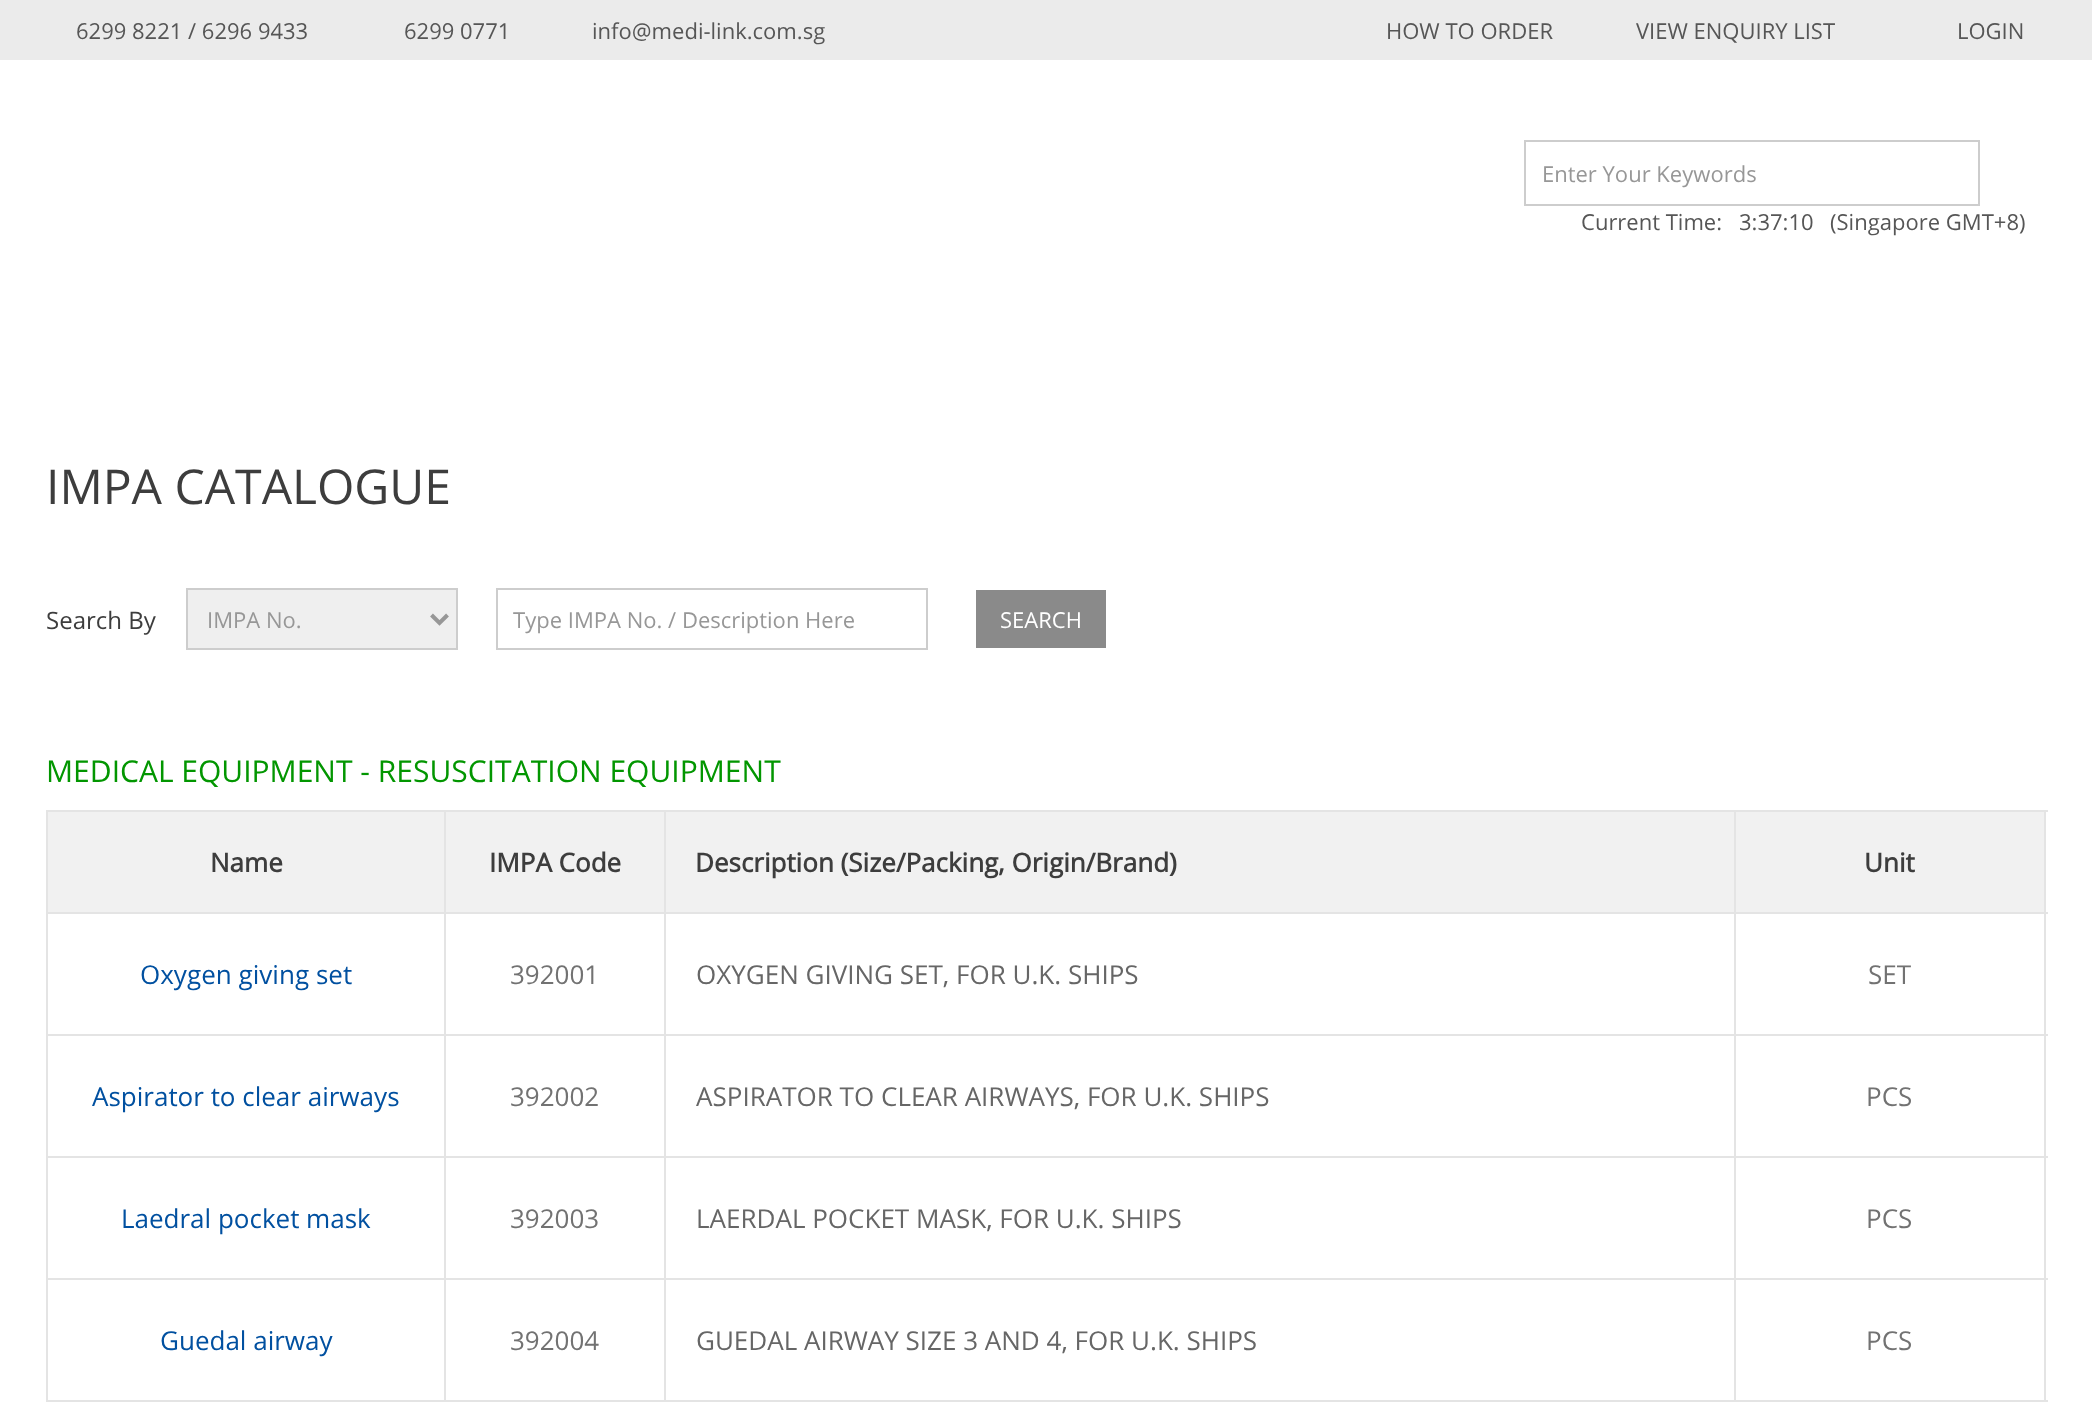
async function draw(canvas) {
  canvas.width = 2092
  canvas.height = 1418
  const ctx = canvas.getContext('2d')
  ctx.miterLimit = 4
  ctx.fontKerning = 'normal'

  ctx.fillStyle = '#fff'
  ctx.fillRect(0, 0, 2092, 1418)
  ctx.fillStyle = '#ebebeb'
  ctx.fillRect(0, 0, 2092, 60)
  ctx.font = '22px Open Sans'
  ctx.fillStyle = '#565656'
  ctx.fillText('6299 8221 / 6296 9433', 76, 39)
  ctx.fillText('6299 0771', 404, 39)
  ctx.fillText('info@medi-link.com.sg', 592, 39)
  ctx.fillText('HOW TO ORDER', 1386, 39)
  ctx.fillText('VIEW ENQUIRY LIST', 1636, 39)
  ctx.fillText('LOGIN', 1957, 39)
  ctx.strokeStyle = '#cdcdcd'
  ctx.lineWidth = 2
  ctx.strokeRect(1525, 141, 454, 64)
  ctx.fillStyle = '#979797'
  ctx.fillText('Enter Your Keywords', 1542, 182)
  ctx.fillStyle = '#565656'
  ctx.fillText('Current Time:', 1581, 230)
  ctx.fillText('3:37:10', 1739, 230)
  ctx.fillText('(Singapore GMT+8)', 1830, 230)
  ctx.font = '48px Open Sans'
  ctx.fillStyle = '#3d3d3d'
  ctx.fillText('IMPA CATALOGUE', 46, 504)
  ctx.font = '24px Open Sans'
  ctx.fillText('Search By', 46, 629)
  ctx.fillStyle = '#efefef'
  ctx.beginPath()
  ctx.rect(187, 589, 270, 60)
  ctx.fill()
  ctx.stroke()
  ctx.beginPath()
  ctx.moveTo(431.5, 615)
  ctx.lineTo(439.5, 623)
  ctx.lineTo(447.5, 615)
  ctx.strokeStyle = '#979797'
  ctx.lineWidth = 4
  ctx.stroke()
  ctx.font = '22px Open Sans'
  ctx.fillStyle = '#979797'
  ctx.fillText('IMPA No.', 207, 628)
  ctx.strokeStyle = '#cdcdcd'
  ctx.lineWidth = 2
  ctx.strokeRect(497, 589, 430, 60)
  ctx.fillText('Type IMPA No. / Description Here', 513, 628)
  ctx.fillStyle = '#8a8a8a'
  ctx.fillRect(976, 590, 130, 58)
  ctx.fillStyle = '#fff'
  ctx.fillText('SEARCH', 1000, 628)
  ctx.font = '30px Open Sans'
  ctx.fillStyle = '#029600'
  ctx.fillText('MEDICAL EQUIPMENT - RESUSCITATION EQUIPMENT', 46, 782)
  ctx.fillStyle = '#f1f1f1'
  ctx.fillRect(48, 812, 1996, 100)
  ctx.fillStyle = '#e4e4e4'
  ctx.fillRect(444, 810, 1604, 2)
  ctx.fillRect(664, 812, 2, 590)
  ctx.fillRect(1734, 812, 2, 590)
  ctx.fillRect(2044, 812, 2, 590)
  ctx.fillRect(444, 912, 1604, 2)
  ctx.fillRect(444, 1034, 1604, 2)
  ctx.fillRect(444, 1156, 1604, 2)
  ctx.fillRect(444, 1278, 1604, 2)
  ctx.fillRect(444, 1400, 1604, 2)
  ctx.fillRect(444, 1278, 2, 124)
  ctx.fillRect(46, 1278, 400, 2)
  ctx.fillRect(444, 1156, 2, 124)
  ctx.fillRect(46, 1156, 400, 2)
  ctx.fillRect(444, 1034, 2, 124)
  ctx.fillRect(46, 1034, 400, 2)
  ctx.fillRect(444, 912, 2, 124)
  ctx.fillRect(46, 912, 400, 2)
  ctx.fillRect(444, 810, 2, 104)
  ctx.fillRect(46, 810, 400, 2)
  ctx.fillRect(46, 1400, 400, 2)
  ctx.fillRect(46, 1278, 2, 124)
  ctx.fillRect(46, 1156, 2, 124)
  ctx.fillRect(46, 1034, 2, 124)
  ctx.fillRect(46, 912, 2, 124)
  ctx.fillRect(46, 810, 2, 104)
  ctx.font = 'bold 26px Open Sans'
  ctx.fillStyle = '#3d3d3d'
  ctx.fillText('Name', 210, 872)
  ctx.fillText('IMPA Code', 489, 872)
  ctx.fillText('Description (Size/Packing, Origin/Brand)', 695, 872)
  ctx.fillText('Unit', 1864, 872)
  ctx.font = '26px Open Sans'
  ctx.fillStyle = '#0150a0'
  ctx.fillText('Oxygen giving set', 140, 984)
  ctx.fillStyle = '#727272'
  ctx.fillText('392001', 510, 984)
  ctx.fillStyle = '#666'
  ctx.fillText('OXYGEN GIVING SET, FOR U.K. SHIPS', 696, 984)
  ctx.fillStyle = '#727272'
  ctx.fillText('SET', 1868, 984)
  ctx.fillStyle = '#0150a0'
  ctx.fillText('Aspirator to clear airways', 92, 1106)
  ctx.fillStyle = '#727272'
  ctx.fillText('392002', 510, 1106)
  ctx.fillStyle = '#666'
  ctx.fillText('ASPIRATOR TO CLEAR AIRWAYS, FOR U.K. SHIPS', 696, 1106)
  ctx.fillStyle = '#727272'
  ctx.fillText('PCS', 1866, 1106)
  ctx.fillStyle = '#0150a0'
  ctx.fillText('Laedral pocket mask', 121, 1228)
  ctx.fillStyle = '#727272'
  ctx.fillText('392003', 510, 1228)
  ctx.fillStyle = '#666'
  ctx.fillText('LAERDAL POCKET MASK, FOR U.K. SHIPS', 696, 1228)
  ctx.fillStyle = '#727272'
  ctx.fillText('PCS', 1866, 1228)
  ctx.fillStyle = '#0150a0'
  ctx.fillText('Guedal airway', 160, 1350)
  ctx.fillStyle = '#727272'
  ctx.fillText('392004', 510, 1350)
  ctx.fillStyle = '#666'
  ctx.fillText('GUEDAL AIRWAY SIZE 3 AND 4, FOR U.K. SHIPS', 696, 1350)
  ctx.fillStyle = '#727272'
  ctx.fillText('PCS', 1866, 1350)
}

draw(document.querySelector('canvas'))
